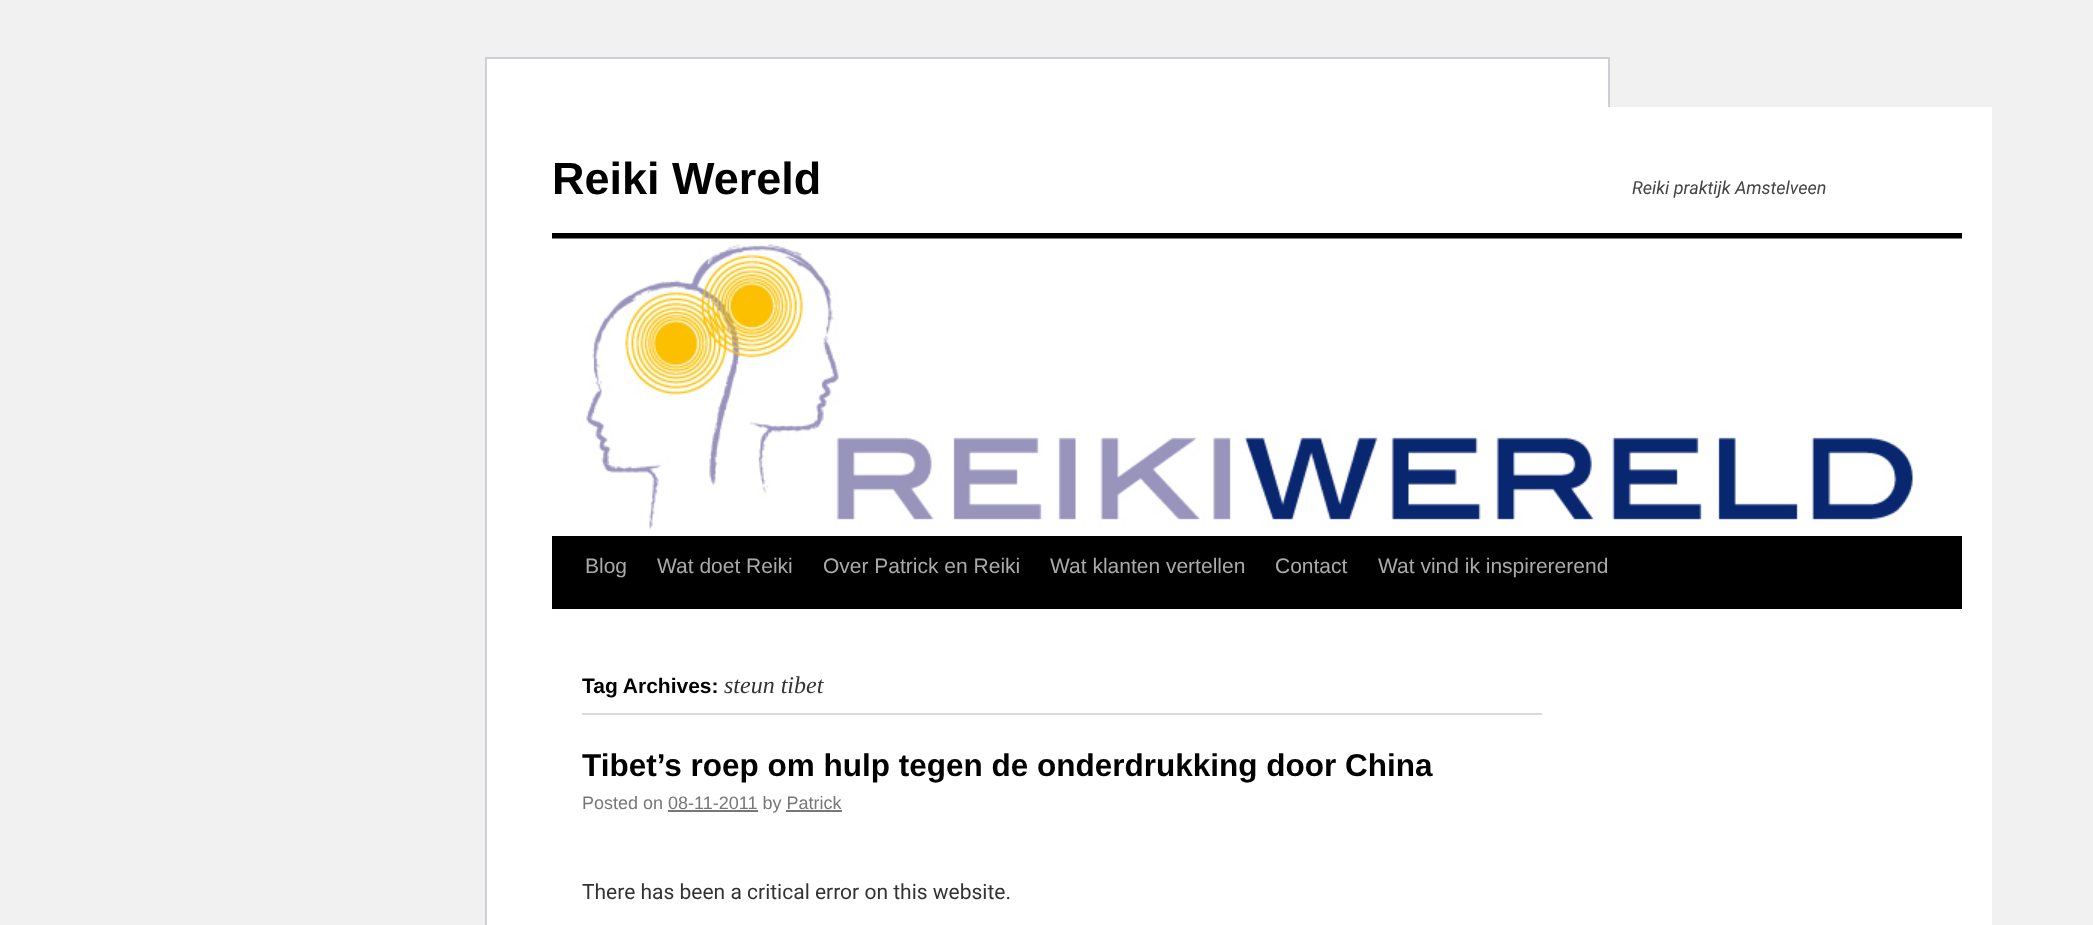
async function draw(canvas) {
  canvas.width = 2093
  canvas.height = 925
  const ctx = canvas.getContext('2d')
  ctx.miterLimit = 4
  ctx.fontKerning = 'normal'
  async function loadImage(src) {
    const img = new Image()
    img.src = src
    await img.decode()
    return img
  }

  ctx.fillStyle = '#f1f1f1'
  ctx.fillRect(0, 0, 2093, 925)
  ctx.fillStyle = '#fff'
  ctx.beginPath()
  ctx.rect(486, 58, 1123, 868)
  ctx.fill()
  ctx.strokeStyle = '#ccd0d4'
  ctx.lineWidth = 2
  ctx.stroke()
  ctx.fillRect(1608, 107, 384, 818)
  ctx.font = 'bold 45px Liberation Sans'
  ctx.fillStyle = '#000'
  ctx.fillText('Reiki Wereld', 552, 194)
  ctx.font = 'italic 18px Roboto'
  ctx.fillStyle = '#444'
  ctx.fillText('Reiki praktijk Amstelveen', 1632, 194)
  ctx.fillStyle = '#000'
  ctx.fillRect(552, 233, 1410, 6)
  ctx.fillRect(552, 536, 1410, 73)
  ctx.drawImage(await loadImage('image0.png'), 552, 238, 1410, 292)
  ctx.font = '21px Liberation Sans'
  ctx.fillStyle = '#aaa'
  ctx.fillText('Blog', 585, 573)
  ctx.fillText('Wat doet Reiki', 657, 573)
  ctx.fillText('Over Patrick en Reiki', 823, 573)
  ctx.fillText('Wat klanten vertellen', 1050, 573)
  ctx.fillText('Contact', 1275, 573)
  ctx.fillText('Wat vind ik inspirererend', 1378, 573)
  ctx.fillStyle = '#dadada'
  ctx.fillRect(582, 713, 960, 2)
  ctx.font = 'bold 21px Liberation Sans'
  ctx.fillStyle = '#000'
  ctx.fillText('Tag Archives:', 582, 693)
  ctx.font = 'italic 24px Liberation Serif'
  ctx.fillStyle = '#333'
  ctx.fillText('steun tibet', 724, 693)
  ctx.font = 'bold 31.5px Liberation Sans'
  ctx.fillStyle = '#000'
  ctx.fillText('Tibet’s roep om hulp tegen de onderdrukking door China', 582, 776)
  ctx.font = '18px Liberation Sans'
  ctx.fillStyle = '#777'
  ctx.fillText('Posted on 08-11-2011 by Patrick', 582, 809)
  ctx.fillRect(668, 810, 90, 2)
  ctx.fillRect(786, 810, 56, 2)
  ctx.font = '21px Roboto'
  ctx.fillStyle = '#333'
  ctx.fillText('There has been a critical error on this website.', 582, 899)
}

draw(document.querySelector('canvas'))
